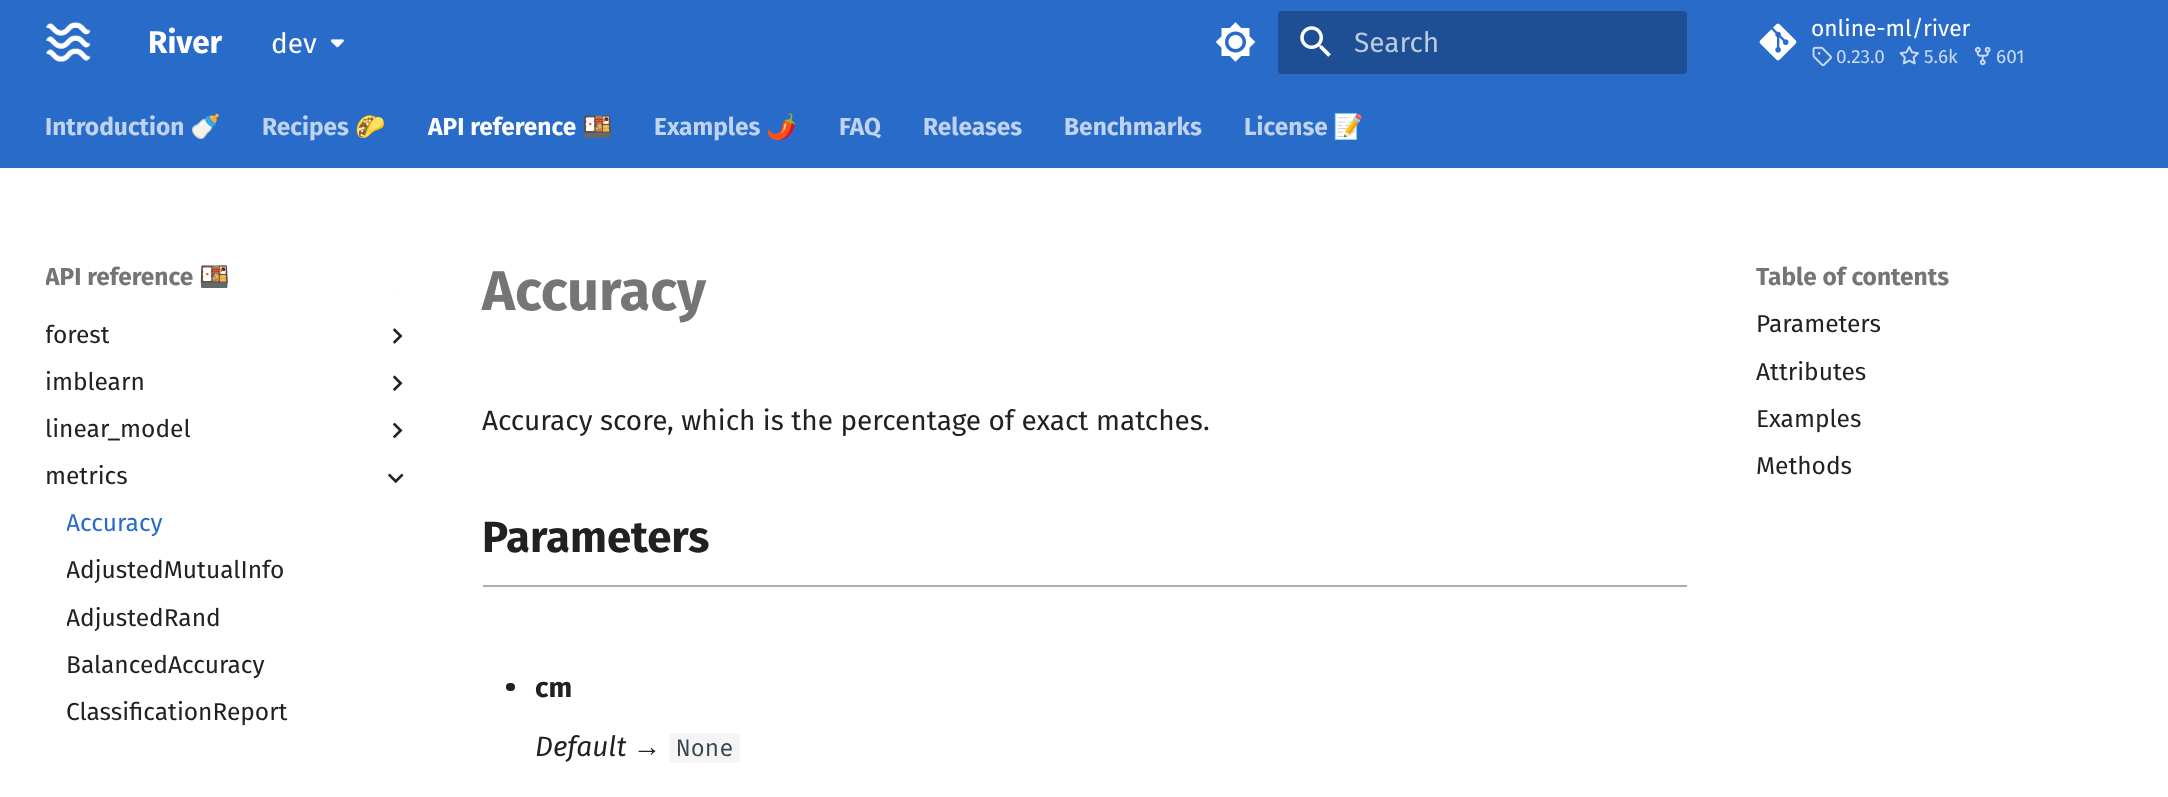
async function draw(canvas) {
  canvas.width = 2168
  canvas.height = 797
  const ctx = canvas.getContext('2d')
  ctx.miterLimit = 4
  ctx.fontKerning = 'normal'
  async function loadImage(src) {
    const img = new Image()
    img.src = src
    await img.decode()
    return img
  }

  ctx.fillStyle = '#fff'
  ctx.fillRect(0, 0, 2168, 797)
  ctx.fillStyle = '#286bc8'
  ctx.fillRect(0, 0, 2168, 168)
  ctx.drawImage(await loadImage('image0.png'), 46, 22, 45, 40)
  ctx.font = 'bold 31.5px Fira Sans'
  ctx.fillStyle = '#fff'
  ctx.fillText('River', 148, 53)
  ctx.font = '28px Fira Sans'
  ctx.fillText('dev', 271, 53)
  ctx.drawImage(await loadImage('image1.png'), 331, 39, 13, 9)
  ctx.drawImage(await loadImage('image2.png'), 1215, 22, 41, 40)
  ctx.fillStyle = '#1e4f94'
  ctx.beginPath()
  ctx.roundRect(1278, 11, 409, 63, 4)
  ctx.fill()
  ctx.drawImage(await loadImage('image3.png'), 1300, 26, 31, 31)
  ctx.fillStyle = '#bccadf'
  ctx.fillText('Search', 1354, 52)
  ctx.drawImage(await loadImage('image4.png'), 1759, 23, 38, 38)
  ctx.font = '22.75px Fira Sans'
  ctx.fillStyle = '#fff'
  ctx.fillText('online-ml/river', 1811, 36)
  ctx.drawImage(await loadImage('image5.png'), 1812, 46, 20, 21)
  ctx.font = '19px Fira Sans'
  ctx.fillStyle = '#c9daf1'
  ctx.fillText('0.23.0', 1836, 63)
  ctx.drawImage(await loadImage('image6.png'), 1899, 46, 20, 19)
  ctx.fillText('5.6k', 1924, 63)
  ctx.drawImage(await loadImage('image7.png'), 1974, 46, 17, 20)
  ctx.fillText('601', 1996, 63)
  ctx.font = 'bold 24.5px Fira Sans'
  ctx.fillStyle = '#bfd3ef'
  ctx.fillText('Introduction', 45, 135)
  ctx.font = 'bold 24.5px Noto Color Emoji'
  ctx.fillText('🍼', 190, 135)
  ctx.font = 'bold 24.5px Fira Sans'
  ctx.fillText('Recipes', 262, 135)
  ctx.font = 'bold 24.5px Noto Color Emoji'
  ctx.fillText('🌮', 355, 135)
  ctx.font = 'bold 24.5px Fira Sans'
  ctx.fillStyle = '#fff'
  ctx.fillText('API reference', 428, 135)
  ctx.font = 'bold 24.5px Noto Color Emoji'
  ctx.fillText('🍱', 582, 135)
  ctx.font = 'bold 24.5px Fira Sans'
  ctx.fillStyle = '#bfd3ef'
  ctx.fillText('Examples', 654, 135)
  ctx.font = 'bold 24.5px Noto Color Emoji'
  ctx.fillText('🌶️', 766, 135)
  ctx.font = 'bold 24.5px Fira Sans'
  ctx.fillText('FAQ', 839, 135)
  ctx.fillText('Releases', 923, 135)
  ctx.fillText('Benchmarks', 1064, 135)
  ctx.fillText('License', 1244, 135)
  ctx.font = 'bold 24.5px Noto Color Emoji'
  ctx.fillText('📝', 1333, 135)
  ctx.drawImage(await loadImage('image8.png'), 392, 294, 6, 3)
  ctx.drawImage(await loadImage('image9.png'), 393, 328, 10, 16)
  ctx.save()
  ctx.beginPath()
  ctx.rect(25, 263, 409, 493)
  ctx.clip()
  ctx.fillStyle = '#fff'
  ctx.filter = 'blur(7px)'
  ctx.beginPath()
  ctx.rect(32, 249, 395, 59)
  ctx.fill()
  ctx.filter = 'none'
  ctx.restore()
  ctx.save()
  ctx.beginPath()
  ctx.rect(46, 263, 183, 31)
  ctx.clip()
  ctx.font = 'bold 24.5px Fira Sans'
  ctx.fillStyle = '#757575'
  ctx.fillText('API reference', 45, 285)
  ctx.restore()
  ctx.fillStyle = '#757575'
  ctx.fillText('🍱', 199, 285)
  ctx.save()
  ctx.beginPath()
  ctx.rect(46, 320, 63, 32)
  ctx.clip()
  ctx.font = '24.5px Fira Sans'
  ctx.fillStyle = '#212121'
  ctx.fillText('forest', 45, 343)
  ctx.restore()
  ctx.font = '24.5px Fira Sans'
  ctx.fillStyle = '#212121'
  ctx.fillText('imblearn', 45, 390)
  ctx.drawImage(await loadImage('image10.png'), 392, 375, 11, 16)
  ctx.fillText('linear_model', 45, 437)
  ctx.drawImage(await loadImage('image11.png'), 392, 422, 11, 17)
  ctx.fillText('metrics', 45, 484)
  ctx.drawImage(await loadImage('image12.png'), 388, 473, 16, 11)
  ctx.save()
  ctx.beginPath()
  ctx.rect(67, 509, 96, 32)
  ctx.clip()
  ctx.fillStyle = '#286bc8'
  ctx.fillText('Accuracy', 66, 531)
  ctx.restore()
  ctx.save()
  ctx.beginPath()
  ctx.rect(67, 557, 217, 31)
  ctx.clip()
  ctx.fillText('AdjustedMutualInfo', 66, 578)
  ctx.restore()
  ctx.save()
  ctx.beginPath()
  ctx.rect(67, 602, 154, 33)
  ctx.clip()
  ctx.fillText('AdjustedRand', 66, 626)
  ctx.restore()
  ctx.fillText('BalancedAccuracy', 66, 673)
  ctx.fillText('ClassificationReport', 66, 720)
  ctx.font = 'bold 56px Fira Sans'
  ctx.fillStyle = '#757575'
  ctx.fillText('Accuracy', 482, 310)
  ctx.font = '28px Fira Sans'
  ctx.fillStyle = '#212121'
  ctx.fillText('Accuracy score, which is the percentage of exact matches.', 482, 430)
  ctx.fillStyle = '#adadad'
  ctx.fillRect(483, 585, 1204, 2)
  ctx.font = 'bold 43.75px Fira Sans'
  ctx.fillStyle = '#212121'
  ctx.fillText('Parameters', 482, 552)
  ctx.beginPath()
  ctx.roundRect(506, 683, 9, 8, 4)
  ctx.fill()
  ctx.font = 'bold 28px Fira Sans'
  ctx.fillText('cm', 535, 697)
  ctx.font = 'italic 28px Fira Sans'
  ctx.fillText('Default', 535, 756)
  ctx.font = '28px Liberation Sans'
  ctx.fillText('→', 633, 756)
  ctx.fillStyle = '#f5f5f5'
  ctx.beginPath()
  ctx.roundRect(669, 733, 71, 30, 4)
  ctx.fill()
  ctx.font = '24px Fira Code'
  ctx.fillStyle = '#36464e'
  ctx.fillText('None', 676, 756)
  ctx.save()
  ctx.beginPath()
  ctx.rect(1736, 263, 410, 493)
  ctx.clip()
  ctx.beginPath()
  ctx.moveTo(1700, 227)
  ctx.lineTo(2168, 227)
  ctx.lineTo(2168, 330)
  ctx.lineTo(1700, 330)
  ctx.closePath()
  ctx.moveTo(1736, 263)
  ctx.lineTo(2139, 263)
  ctx.lineTo(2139, 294)
  ctx.lineTo(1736, 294)
  ctx.closePath()
  ctx.clip('evenodd')
  ctx.fillStyle = '#fff'
  ctx.filter = 'blur(7px)'
  ctx.beginPath()
  ctx.rect(1722, 249, 431, 59)
  ctx.fill()
  ctx.filter = 'none'
  ctx.restore()
  ctx.font = 'bold 24.5px Fira Sans'
  ctx.fillStyle = '#757575'
  ctx.fillText('Table of contents', 1756, 285)
  ctx.font = '24.5px Fira Sans'
  ctx.fillStyle = '#212121'
  ctx.fillText('Parameters', 1756, 332)
  ctx.fillText('Attributes', 1756, 380)
  ctx.fillText('Examples', 1756, 427)
  ctx.fillText('Methods', 1756, 474)
}

draw(document.querySelector('canvas'))
